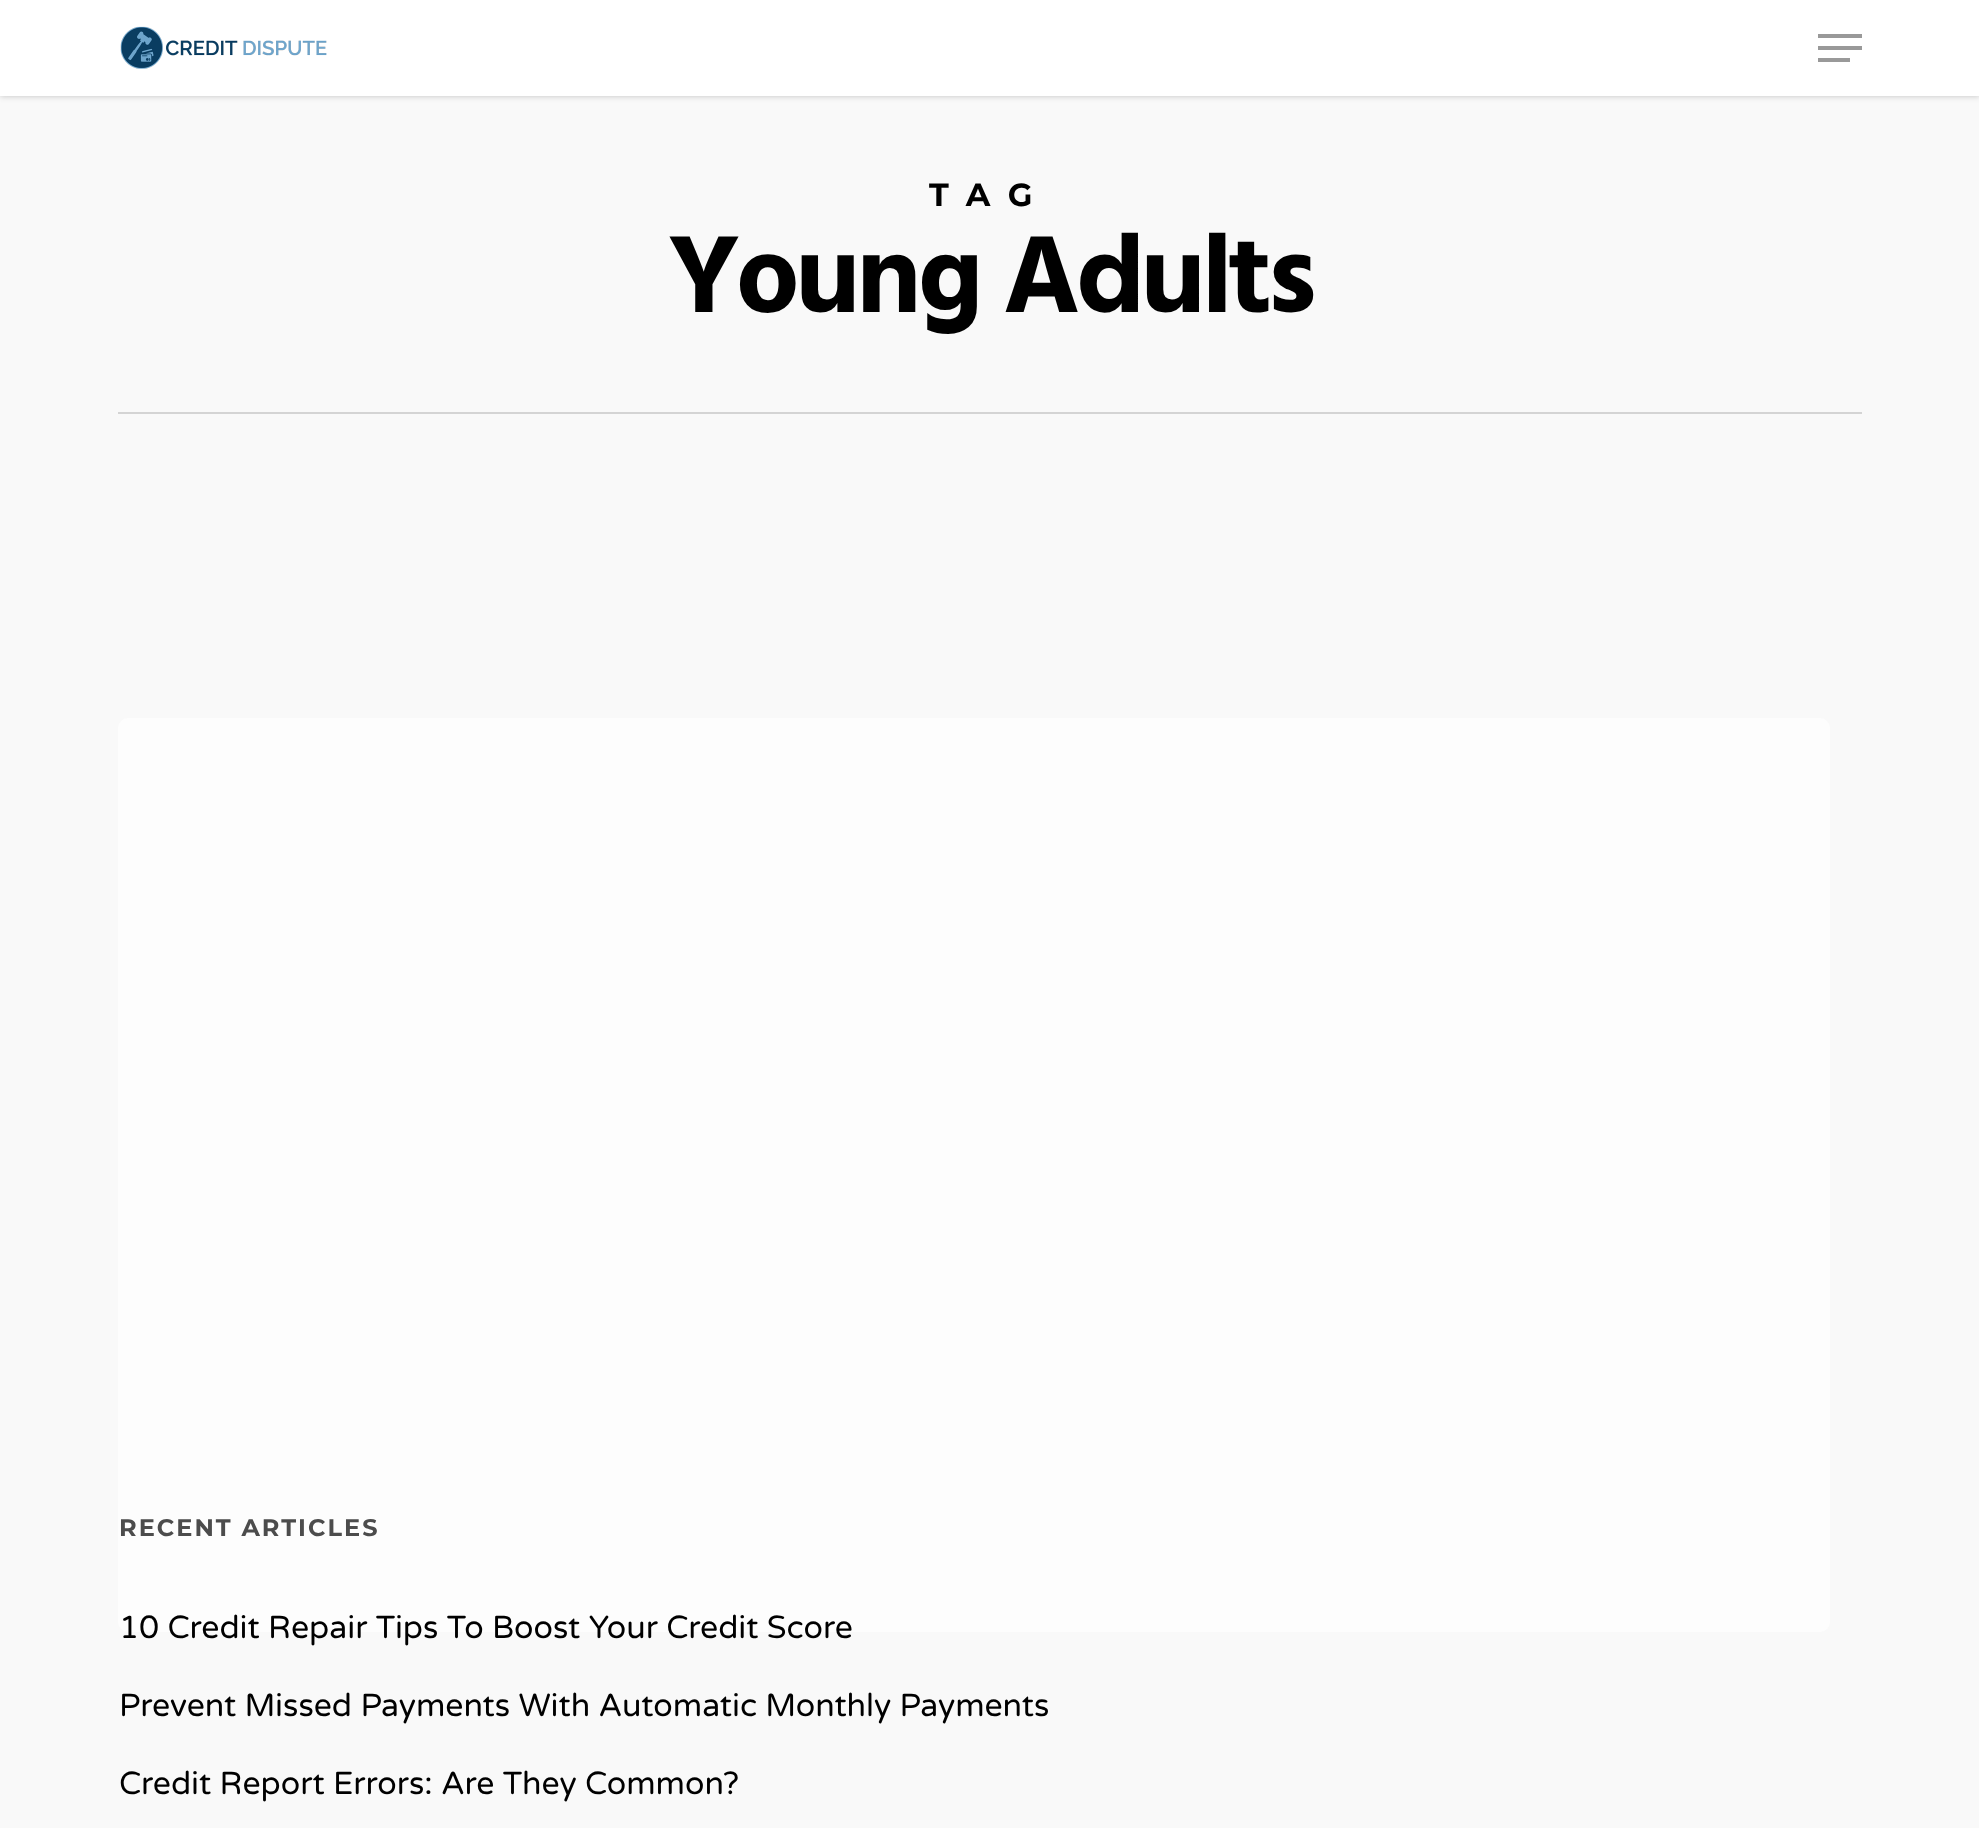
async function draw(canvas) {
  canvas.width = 1979
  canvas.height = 1828
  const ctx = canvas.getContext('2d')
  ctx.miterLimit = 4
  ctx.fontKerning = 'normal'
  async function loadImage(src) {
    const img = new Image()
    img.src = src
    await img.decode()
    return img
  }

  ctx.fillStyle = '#f9f9f9'
  ctx.fillRect(0, 0, 1979, 1828)
  ctx.fillStyle = '#00000038'
  ctx.filter = 'blur(3px)'
  ctx.beginPath()
  ctx.rect(0, 0, 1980, 96)
  ctx.fill()
  ctx.filter = 'none'
  ctx.fillStyle = '#fff'
  ctx.fillRect(0, 0, 1979, 96)
  ctx.drawImage(await loadImage('image0.png'), 120, 26, 207, 43)
  ctx.fillStyle = '#999'
  ctx.fillRect(1818, 34, 44, 4)
  ctx.fillRect(1818, 58, 32, 4)
  ctx.fillRect(1818, 46, 44, 4)
  ctx.fillStyle = '#d4d4d4'
  ctx.fillRect(118, 412, 1744, 2)
  ctx.letterSpacing = '18px'
  ctx.font = '100 32px Montserrat'
  ctx.fillStyle = '#000'
  ctx.fillText('TAG', 929, 206)
  ctx.letterSpacing = '-4px'
  ctx.font = 'bold 112px Hind'
  ctx.fillText('Young Adults', 668, 312)
  ctx.fillStyle = '#fdfdfd'
  ctx.beginPath()
  ctx.roundRect(118, 718, 1712, 914, 10)
  ctx.fill()
  ctx.letterSpacing = '2px'
  ctx.font = '100 24px Montserrat'
  ctx.fillStyle = '#4c4c4c'
  ctx.fillText('RECENT ARTICLES', 119, 1536)
  ctx.letterSpacing = '0px'
  ctx.font = '32px Varela Round'
  ctx.fillStyle = '#000'
  ctx.fillText('10 Credit Repair Tips To Boost Your Credit Score', 119, 1638)
  ctx.fillText('Prevent Missed Payments With Automatic Monthly Payments', 119, 1716)
  ctx.fillText('Credit Report Errors: Are They Common?', 119, 1794)
}

draw(document.querySelector('canvas'))
